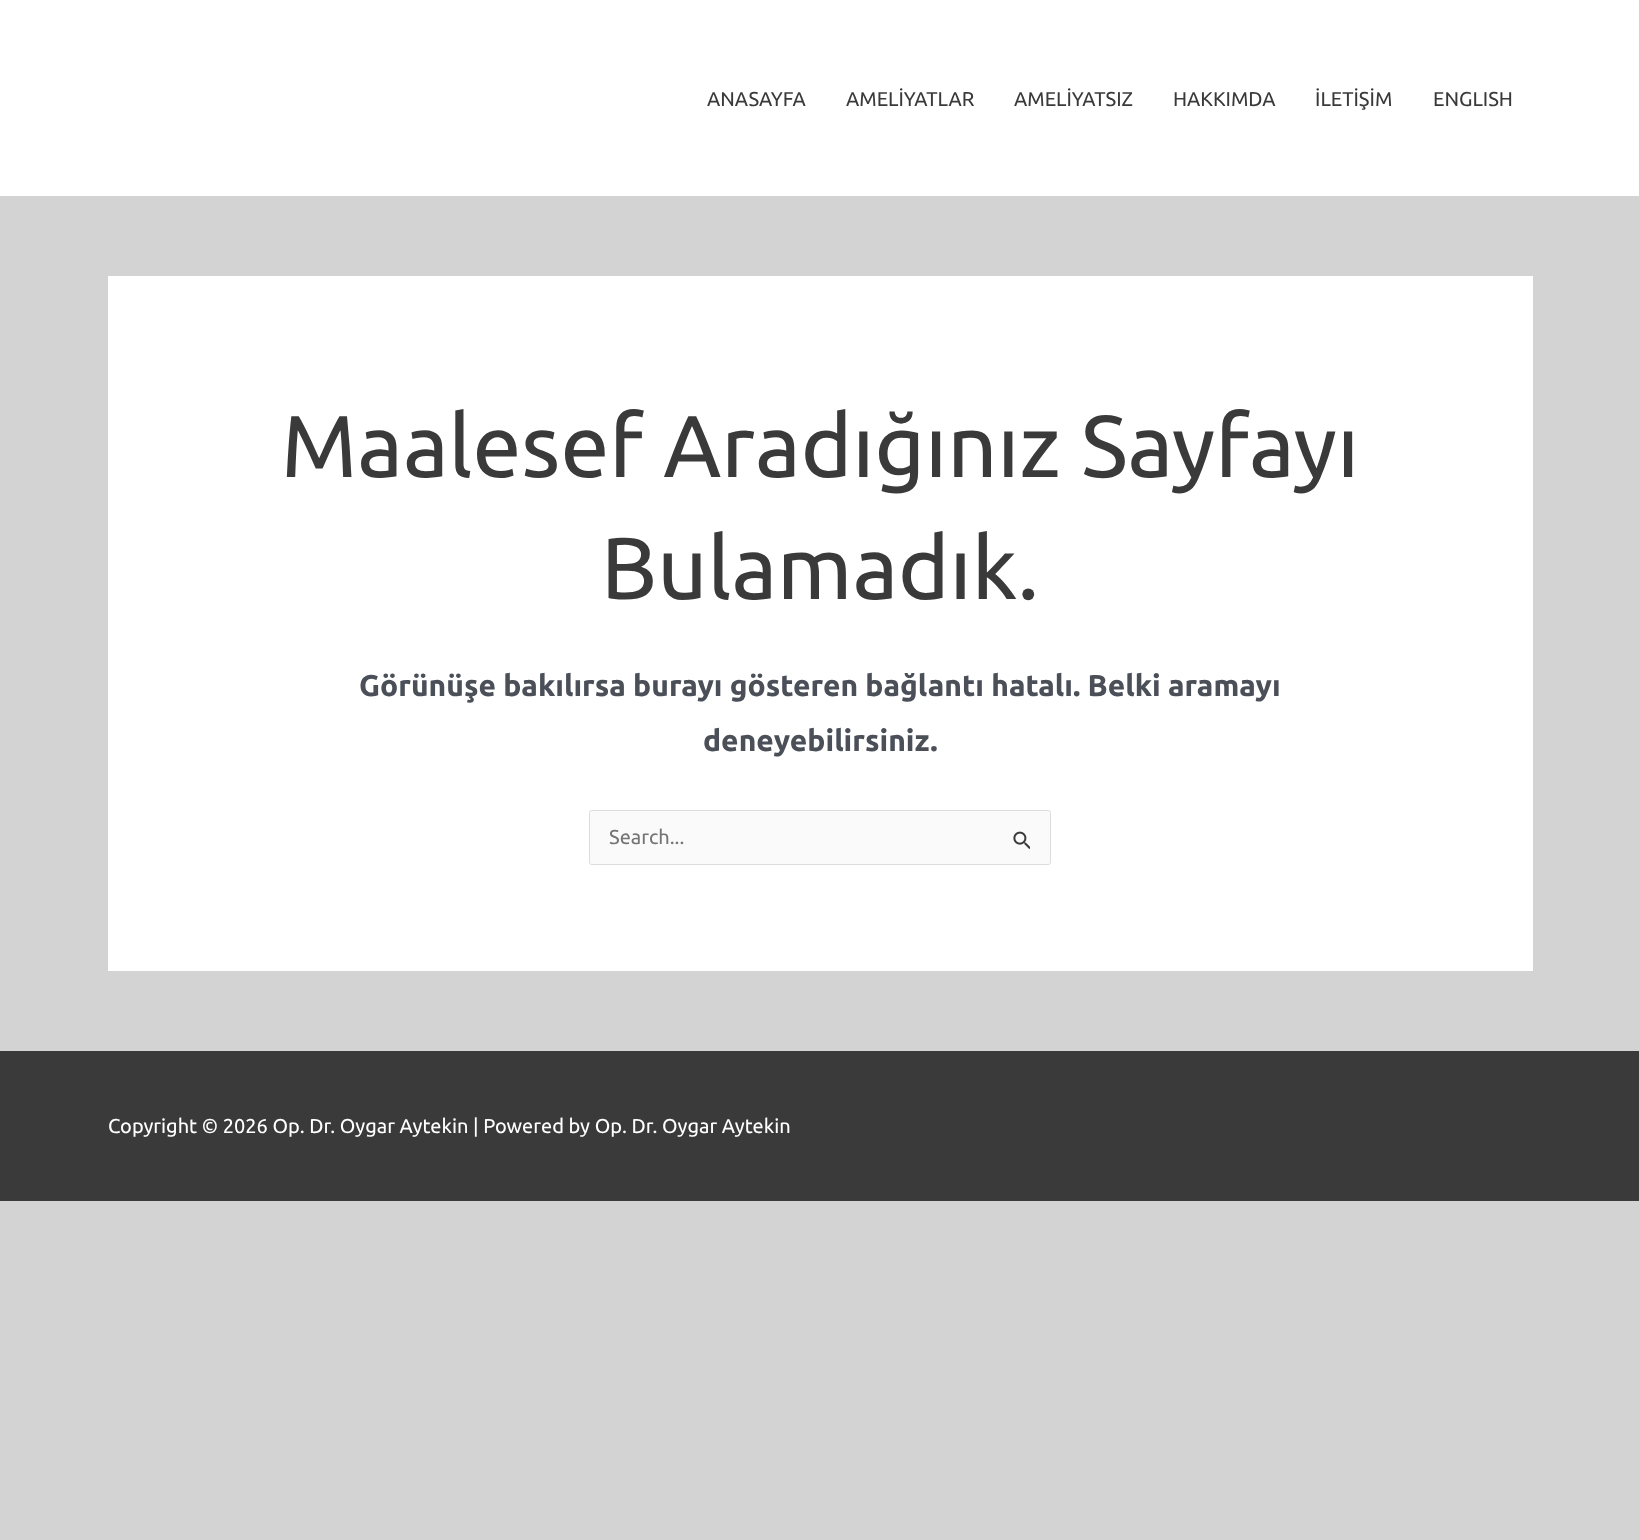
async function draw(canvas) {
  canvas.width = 1639
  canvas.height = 1540
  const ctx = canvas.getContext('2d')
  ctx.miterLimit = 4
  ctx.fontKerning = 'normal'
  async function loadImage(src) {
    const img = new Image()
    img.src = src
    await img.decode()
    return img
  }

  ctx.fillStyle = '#d3d3d3'
  ctx.fillRect(0, 0, 1639, 1540)
  ctx.fillStyle = '#fff'
  ctx.fillRect(0, 0, 1639, 196)
  ctx.font = '20px Ubuntu'
  ctx.fillStyle = '#3a3a3a'
  ctx.fillText('ANASAYFA', 707, 106)
  ctx.fillText('AMELİYATLAR', 846, 106)
  ctx.fillText('AMELİYATSIZ', 1014, 106)
  ctx.fillText('HAKKIMDA', 1173, 106)
  ctx.fillText('İLETİŞİM', 1315, 106)
  ctx.fillText('ENGLISH', 1433, 106)
  ctx.fillStyle = '#fff'
  ctx.fillRect(108, 276, 1425, 695)
  ctx.font = '87.5px Ubuntu'
  ctx.fillStyle = '#3a3a3a'
  ctx.fillText('Maalesef Aradığınız Sayfayı', 281, 477)
  ctx.fillText('Bulamadık.', 601, 599)
  ctx.font = 'bold 30px Ubuntu'
  ctx.fillStyle = '#4b4f58'
  ctx.fillText('Görünüşe bakılırsa burayı gösteren bağlantı hatalı. Belki aramayı', 359, 696)
  ctx.fillText('deneyebilirsiniz.', 703, 751)
  ctx.fillStyle = '#fafafa'
  ctx.beginPath()
  ctx.roundRect(589.5, 810.5, 461, 54, 2)
  ctx.fill()
  ctx.strokeStyle = '#ddd'
  ctx.stroke()
  ctx.font = '20px Ubuntu'
  ctx.fillStyle = '#757575'
  ctx.fillText('Search...', 609, 844)
  ctx.drawImage(await loadImage('image0.png'), 1013, 831, 17, 18)
  ctx.fillStyle = '#3a3a3a'
  ctx.fillRect(0, 1051, 1639, 150)
  ctx.fillStyle = '#fff'
  ctx.fillText('Copyright © 2026 Op. Dr. Oygar Aytekin | Powered by Op. Dr. Oygar Aytekin', 108, 1133)
}

draw(document.querySelector('canvas'))
